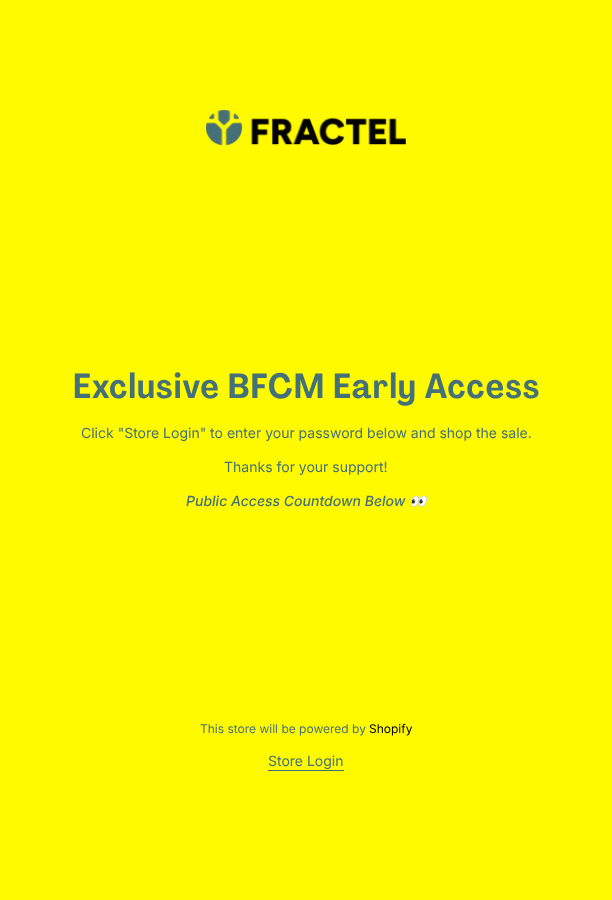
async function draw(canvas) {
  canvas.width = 612
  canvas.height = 900
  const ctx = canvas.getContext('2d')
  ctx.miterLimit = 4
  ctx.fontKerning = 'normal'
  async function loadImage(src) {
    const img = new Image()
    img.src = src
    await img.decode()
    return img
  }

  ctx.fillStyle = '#fffa00'
  ctx.fillRect(0, 0, 612, 900)
  ctx.drawImage(await loadImage('image0.png'), 206, 110, 200, 36)
  ctx.letterSpacing = '-0.85px'
  ctx.font = 'bold 34.5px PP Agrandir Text'
  ctx.fillStyle = '#447077'
  ctx.fillText('Exclusive BFCM Early Access', 72, 398)
  ctx.letterSpacing = '0px'
  ctx.font = '14px Inter'
  ctx.fillText('Click "Store Login" to enter your password below and shop the sale.', 81, 438)
  ctx.fillText('Thanks for your support!', 224, 472)
  ctx.font = 'italic 500 14px Inter'
  ctx.fillText('Public Access Countdown Below', 186, 506)
  ctx.font = 'italic 14px Noto Color Emoji'
  ctx.fillText('👀', 409, 506)
  ctx.font = '12px Inter'
  ctx.fillText('This store will be powered by', 200, 733)
  ctx.fillStyle = '#020303'
  ctx.fillText('Shopify', 369, 733)
  ctx.fillStyle = '#447077'
  ctx.fillRect(268, 770, 76, 1)
  ctx.font = '14px Inter'
  ctx.fillText('Store Login', 268, 766)
}

draw(document.querySelector('canvas'))
